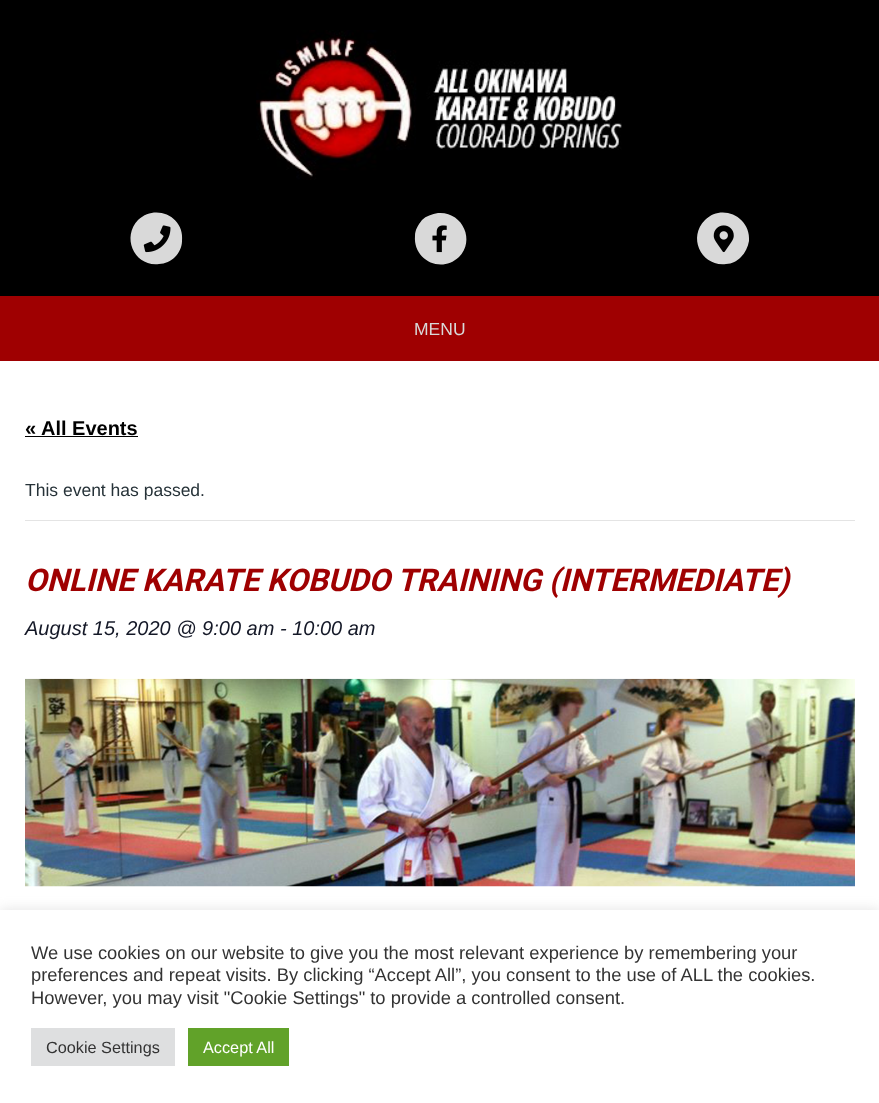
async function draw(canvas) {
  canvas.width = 879
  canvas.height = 1103
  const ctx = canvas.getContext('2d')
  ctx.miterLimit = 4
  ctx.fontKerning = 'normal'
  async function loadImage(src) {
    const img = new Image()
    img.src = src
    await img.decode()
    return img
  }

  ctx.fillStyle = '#9f0001'
  ctx.fillRect(0, 0, 879, 1103)
  ctx.fillStyle = '#000'
  ctx.fillRect(0, 0, 879, 296)
  ctx.drawImage(await loadImage('image0.png'), 256, 30, 366, 150)
  ctx.fillStyle = '#d9d9d9'
  ctx.beginPath()
  ctx.moveTo(138, 220)
  ctx.bezierCurveTo(156, 203, 185, 217, 182, 241)
  ctx.bezierCurveTo(182, 247, 179, 253, 175, 257)
  ctx.bezierCurveTo(171, 261, 165, 264, 159, 264)
  ctx.bezierCurveTo(135, 267, 121, 238, 138, 220)
  ctx.closePath()
  ctx.fill()
  ctx.drawImage(await loadImage('image1.png'), 143, 225, 28, 28)
  ctx.beginPath()
  ctx.moveTo(422, 220)
  ctx.bezierCurveTo(426, 216, 432, 214, 438, 213)
  ctx.bezierCurveTo(462, 211, 476, 240, 459, 257)
  ctx.bezierCurveTo(441, 274, 413, 260, 415, 236)
  ctx.bezierCurveTo(415, 230, 418, 225, 422, 220)
  ctx.closePath()
  ctx.fill()
  ctx.drawImage(await loadImage('image2.png'), 432, 225, 15, 28)
  ctx.beginPath()
  ctx.moveTo(705, 220)
  ctx.bezierCurveTo(722, 203, 751, 217, 749, 241)
  ctx.bezierCurveTo(748, 247, 745, 253, 741, 257)
  ctx.bezierCurveTo(737, 261, 732, 264, 726, 264)
  ctx.bezierCurveTo(702, 267, 687, 238, 705, 220)
  ctx.closePath()
  ctx.fill()
  ctx.drawImage(await loadImage('image3.png'), 713, 225, 21, 28)
  ctx.font = '17.5px Liberation Sans'
  ctx.fillText('MENU', 414, 335)
  ctx.fillStyle = '#fff'
  ctx.fillRect(0, 361, 879, 549)
  ctx.font = 'bold 20px Liberation Sans'
  ctx.fillStyle = '#000'
  ctx.fillText('« All Events', 25, 435)
  ctx.fillRect(25, 436, 113, 1)
  ctx.fillStyle = '#e4e4e4'
  ctx.fillRect(25, 520, 830, 1)
  ctx.font = '17.5px Liberation Sans'
  ctx.fillStyle = '#263238'
  ctx.fillText('This event has passed.', 25, 496)
  ctx.font = 'italic bold 31.25px Roboto'
  ctx.fillStyle = '#9f0001'
  ctx.fillText('ONLINE KARATE KOBUDO TRAINING (INTERMEDIATE)', 25, 591)
  ctx.font = 'italic 20px Liberation Sans'
  ctx.fillStyle = '#141827'
  ctx.fillText('August 15, 2020 @ 9:00 am - 10:00 am', 25, 635)
  ctx.drawImage(await loadImage('image4.png'), 25, 678, 830, 209)
  ctx.fillStyle = '#acabab4d'
  ctx.filter = 'blur(6px)'
  ctx.beginPath()
  ctx.rect(0, 909, 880, 194)
  ctx.fill()
  ctx.filter = 'none'
  ctx.fillStyle = '#fff'
  ctx.fillRect(0, 910, 879, 193)
  ctx.font = '18.35px Liberation Sans'
  ctx.fillStyle = '#333'
  ctx.fillText('We use cookies on our website to give you the most relevant experience by remembering your', 31, 959)
  ctx.fillText('preferences and repeat visits. By clicking “Accept All”, you consent to the use of ALL the cookies.', 31, 981)
  ctx.fillText('However, you may visit "Cookie Settings" to provide a controlled consent.', 31, 1004)
  ctx.fillStyle = '#dedfe0'
  ctx.fillRect(31, 1028, 144, 38)
  ctx.font = '16.25px Liberation Sans'
  ctx.fillStyle = '#333'
  ctx.fillText('Cookie Settings', 46, 1053)
  ctx.fillStyle = '#61a229'
  ctx.fillRect(188, 1028, 101, 38)
  ctx.fillStyle = '#fff'
  ctx.fillText('Accept All', 203, 1053)
}

draw(document.querySelector('canvas'))
